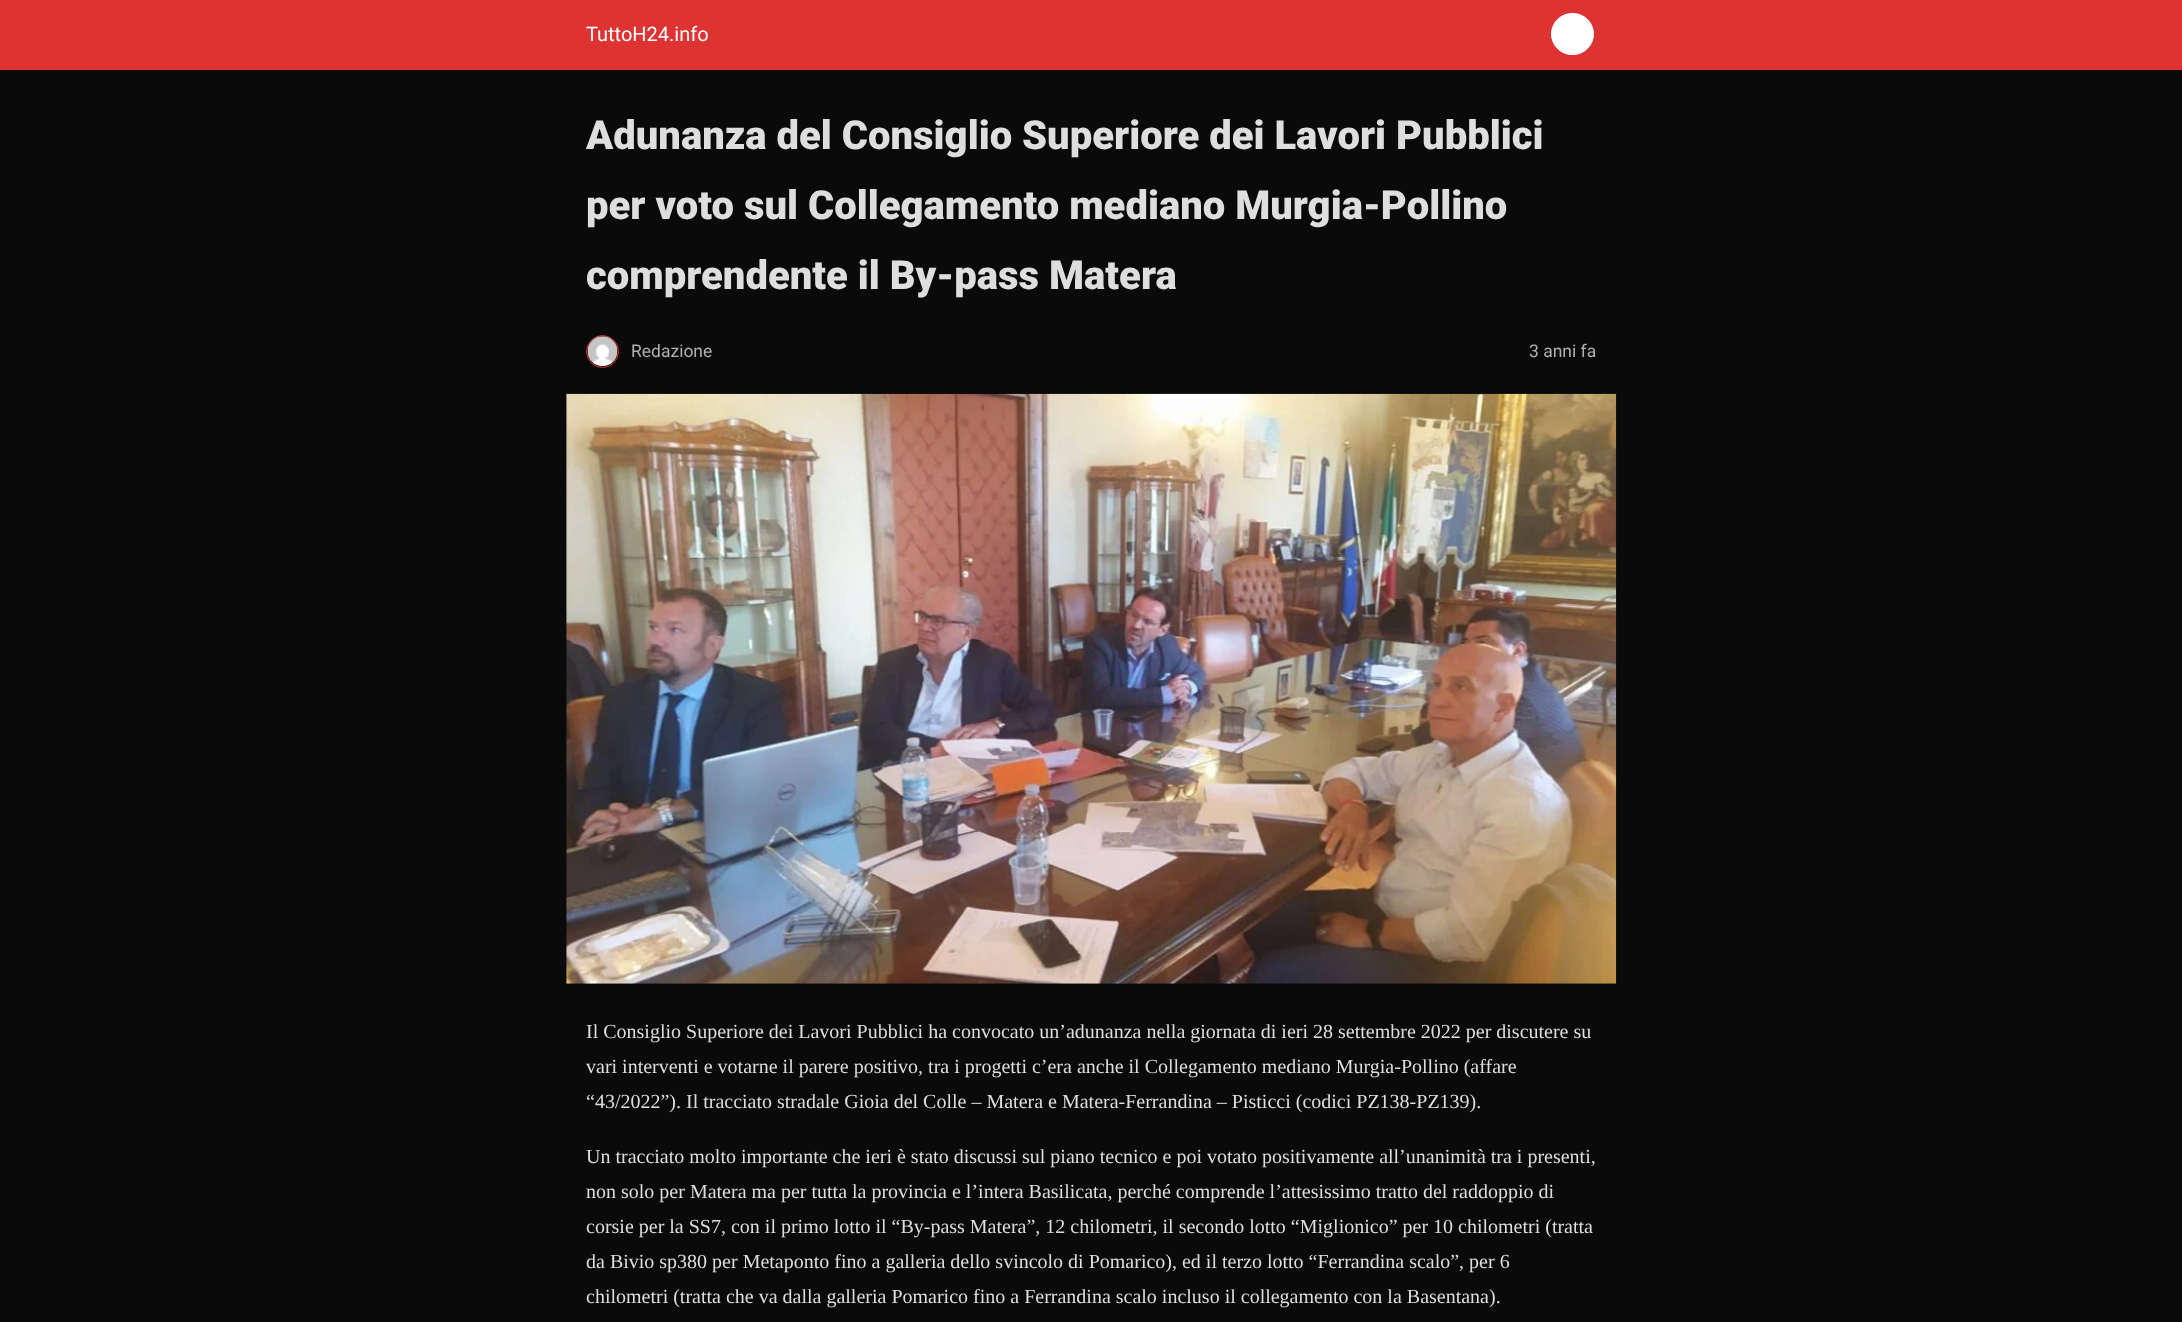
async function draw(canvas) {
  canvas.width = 2182
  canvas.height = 1322
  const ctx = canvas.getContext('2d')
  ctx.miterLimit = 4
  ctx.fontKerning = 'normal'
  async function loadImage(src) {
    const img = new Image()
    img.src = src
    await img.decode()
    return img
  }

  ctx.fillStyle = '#0a0a0a'
  ctx.fillRect(0, 0, 2182, 1322)
  ctx.fillStyle = '#d33'
  ctx.fillRect(0, 0, 2182, 70)
  ctx.font = '20px Roboto'
  ctx.fillStyle = '#fff'
  ctx.fillText('TuttoH24.info', 586, 41)
  ctx.beginPath()
  ctx.roundRect(1551.5, 13.5, 42, 41, 20.5)
  ctx.fill()
  ctx.strokeStyle = '#fff'
  ctx.stroke()
  ctx.font = '900 40px Roboto'
  ctx.fillStyle = '#dedede'
  ctx.fillText('Adunanza del Consiglio Superiore dei Lavori Pubblici', 586, 149)
  ctx.fillText('per voto sul Collegamento mediano Murgia-Pollino', 586, 219)
  ctx.fillText('comprendente il By-pass Matera', 586, 289)
  ctx.beginPath()
  ctx.arc(602.5, 351.5, 16, 0, 2 * Math.PI)
  ctx.strokeStyle = '#d33'
  ctx.stroke()
  ctx.drawImage(await loadImage('image0.png'), 587, 336, 31, 31)
  ctx.font = '17.5px Roboto'
  ctx.fillStyle = '#b1b1b1'
  ctx.fillText('Redazione', 631, 357)
  ctx.fillText('3 anni fa', 1529, 357)
  ctx.drawImage(await loadImage('image1.png'), 566, 393, 1051, 591)
  ctx.font = '20px Liberation Serif'
  ctx.fillStyle = '#dedede'
  ctx.fillText('Il Consiglio Superiore dei Lavori Pubblici ha convocato un’adunanza nella giornata di ieri 28 settembre 2022 per discutere su', 586, 1038)
  ctx.fillText('vari interventi e votarne il parere positivo, tra i progetti c’era anche il Collegamento mediano Murgia-Pollino (affare', 586, 1073)
  ctx.fillText('“43/2022”). Il tracciato stradale Gioia del Colle – Matera e Matera-Ferrandina – Pisticci (codici PZ138-PZ139).', 586, 1108)
  ctx.fillText('Un tracciato molto importante che ieri è stato discussi sul piano tecnico e poi votato positivamente all’unanimità tra i presenti,', 586, 1163)
  ctx.fillText('non solo per Matera ma per tutta la provincia e l’intera Basilicata, perché comprende l’attesissimo tratto del raddoppio di', 586, 1198)
  ctx.fillText('corsie per la SS7, con il primo lotto il “By-pass Matera”, 12 chilometri, il secondo lotto “Miglionico” per 10 chilometri (tratta', 586, 1233)
  ctx.fillText('da Bivio sp380 per Metaponto fino a galleria dello svincolo di Pomarico), ed il terzo lotto “Ferrandina scalo”, per 6', 586, 1268)
  ctx.fillText('chilometri (tratta che va dalla galleria Pomarico fino a Ferrandina scalo incluso il collegamento con la Basentana).', 586, 1303)
}

draw(document.querySelector('canvas'))
